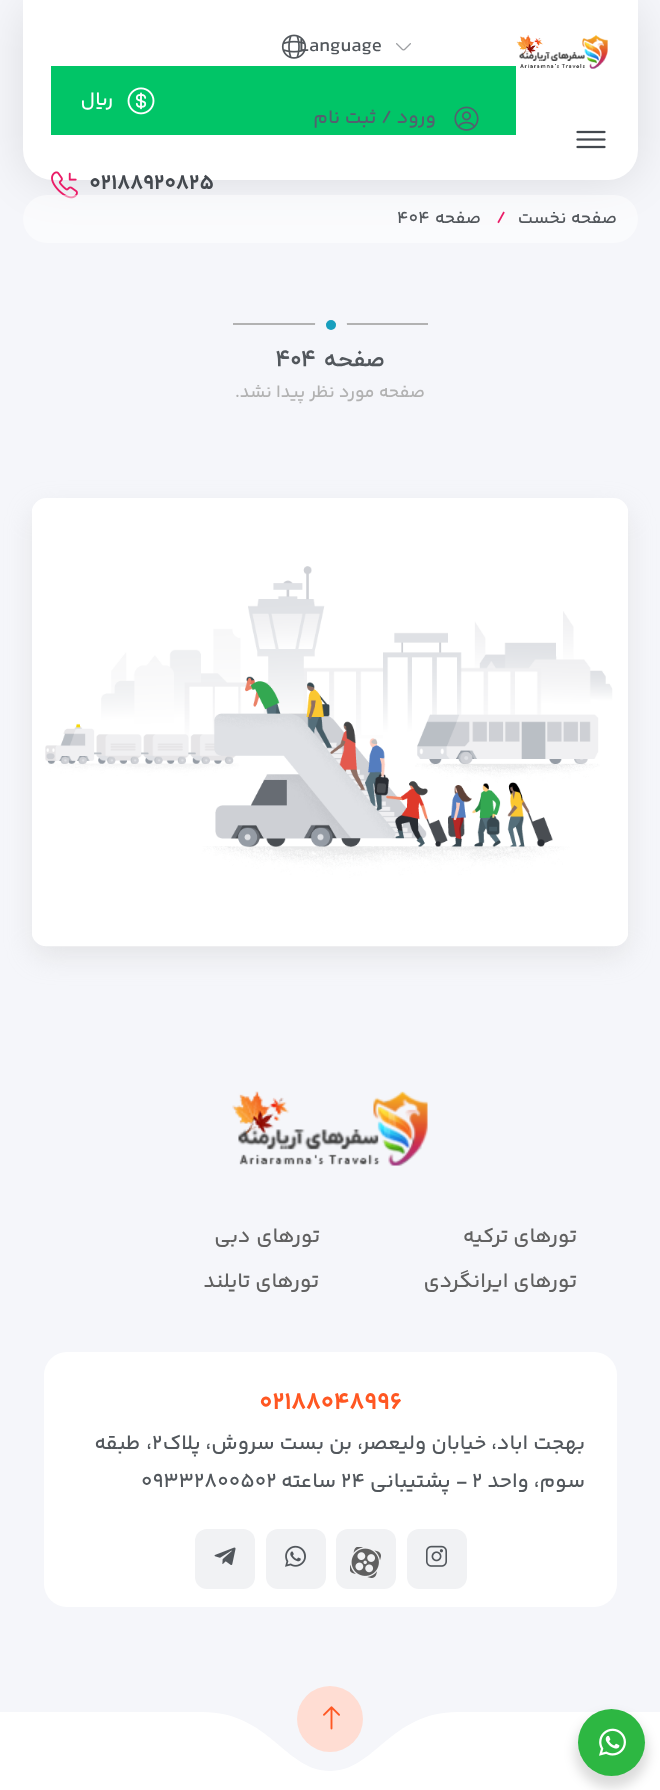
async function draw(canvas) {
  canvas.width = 660
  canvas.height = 1790
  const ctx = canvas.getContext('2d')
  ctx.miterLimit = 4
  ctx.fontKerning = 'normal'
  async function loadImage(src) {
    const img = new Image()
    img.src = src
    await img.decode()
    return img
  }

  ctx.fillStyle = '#f5f6fa'
  ctx.fillRect(0, 0, 660, 1790)
  ctx.fillStyle = '#0000001a'
  ctx.filter = 'blur(22.5px)'
  ctx.beginPath()
  ctx.roundRect(23, 2, 615, 180, 30)
  ctx.fill()
  ctx.filter = 'none'
  ctx.fillStyle = '#fff'
  ctx.beginPath()
  ctx.roundRect(23, 0, 615, 180, [0, 0, 30, 30])
  ctx.fill()
  ctx.drawImage(await loadImage('image0.png'), 516, 35, 92, 34)
  ctx.drawImage(await loadImage('image1.png'), 396, 43, 15, 8)
  ctx.font = '19.5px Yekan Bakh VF'
  ctx.fillStyle = '#52575c'
  ctx.fillText('Language', 299, 51)
  ctx.drawImage(await loadImage('image2.png'), 281, 34, 26, 25)
  ctx.fillStyle = '#01c567'
  ctx.fillRect(51, 66, 465, 69)
  ctx.drawImage(await loadImage('image3.png'), 127, 87, 28, 28)
  ctx.direction = 'rtl'
  ctx.fillStyle = '#fff'
  ctx.fillText('ریال', 113, 105)
  ctx.drawImage(await loadImage('image4.png'), 454, 106, 25, 25)
  ctx.fillStyle = '#54606f'
  ctx.fillText('ورود / ثبت نام', 436, 123)
  ctx.drawImage(await loadImage('image5.png'), 576, 130, 30, 19)
  ctx.direction = 'ltr'
  ctx.font = 'bold 21px Yekan Bakh VF'
  ctx.fillStyle = '#43484e'
  ctx.fillText('۰۲۱۸۸۹۲۰۸۲۵', 89, 189)
  ctx.drawImage(await loadImage('image6.png'), 51, 171, 27, 28)
  ctx.fillStyle = '#ffffff80'
  ctx.beginPath()
  ctx.roundRect(23, 195, 615, 48, 24)
  ctx.fill()
  ctx.direction = 'rtl'
  ctx.font = '17.8px Yekan Bakh VF'
  ctx.fillStyle = '#52575c'
  ctx.fillText('صفحه نخست', 617, 223)
  ctx.direction = 'ltr'
  ctx.fillStyle = '#ea1b66'
  ctx.fillText('/', 496, 223)
  ctx.direction = 'rtl'
  ctx.fillStyle = '#52575c'
  ctx.fillText('صفحه', 481, 223)
  ctx.direction = 'ltr'
  ctx.fillText('۴۰۴', 397, 223)
  ctx.fillStyle = '#b2b2b2'
  ctx.fillRect(233, 323, 195, 2)
  ctx.beginPath()
  ctx.arc(331, 325, 10.5, 0, 2 * Math.PI)
  ctx.strokeStyle = '#f5f6fa'
  ctx.lineWidth = 11
  ctx.stroke()
  ctx.fillStyle = '#179fbe'
  ctx.beginPath()
  ctx.arc(331, 325, 5, 0, 2 * Math.PI)
  ctx.fill()
  ctx.direction = 'rtl'
  ctx.font = 'bold 23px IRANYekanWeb'
  ctx.fillStyle = '#52575c'
  ctx.fillText('صفحه', 384, 366)
  ctx.direction = 'ltr'
  ctx.fillText('۴۰۴', 276, 366)
  ctx.direction = 'rtl'
  ctx.font = '17.8px Yekan Bakh VF'
  ctx.fillStyle = '#b2b2b2'
  ctx.fillText('صفحه مورد نظر پیدا نشد.', 425, 397)
  ctx.fillStyle = '#c7c7c75e'
  ctx.filter = 'blur(13.5px)'
  ctx.beginPath()
  ctx.roundRect(33, 510, 594, 446, 14)
  ctx.fill()
  ctx.filter = 'none'
  ctx.drawImage(await loadImage('image7.png'), 32, 498, 596, 449)
  ctx.drawImage(await loadImage('image8.png'), 232, 1091, 196, 75)
  ctx.font = '21px Yekan Bakh VF'
  ctx.fillStyle = '#616161'
  ctx.fillText('تورهای ترکیه', 577, 1242)
  ctx.wordSpacing = '1px'
  ctx.fillText('تورهای دبی', 320, 1242)
  ctx.wordSpacing = '0px'
  ctx.fillText('تورهای ایرانگردی', 577, 1287)
  ctx.fillText('تورهای تایلند', 319, 1287)
  ctx.fillStyle = '#fff'
  ctx.beginPath()
  ctx.roundRect(44, 1352, 573, 255, 23)
  ctx.fill()
  ctx.direction = 'ltr'
  ctx.font = 'bold 24px Yekan Bakh VF'
  ctx.fillStyle = '#ff5722'
  ctx.fillText('۰۲۱۸۸۰۴۸۹۹۶', 259, 1409)
  ctx.direction = 'rtl'
  ctx.font = '21px Yekan Bakh VF'
  ctx.fillStyle = '#52575c'
  ctx.fillText('بهجت اباد، خیابان ولیعصر، بن بست سروش، پلاک', 585, 1449)
  ctx.direction = 'ltr'
  ctx.fillText('۲', 152, 1449)
  ctx.wordSpacing = '1px'
  ctx.direction = 'rtl'
  ctx.fillText('، طبقه', 152, 1449)
  ctx.wordSpacing = '0px'
  ctx.fillText('سوم، واحد', 585, 1487)
  ctx.direction = 'ltr'
  ctx.fillText('۲', 472, 1487)
  ctx.direction = 'rtl'
  ctx.fillText('- پشتیبانی', 468, 1487)
  ctx.direction = 'ltr'
  ctx.fillText('۲۴', 341, 1487)
  ctx.direction = 'rtl'
  ctx.fillText('ساعته', 336, 1487)
  ctx.direction = 'ltr'
  ctx.fillText('۰۹۳۳۲۸۰۰۵۰۲', 141, 1487)
  ctx.fillStyle = '#f1f2f4'
  ctx.beginPath()
  ctx.roundRect(407, 1529, 60, 60, 12)
  ctx.fill()
  ctx.drawImage(await loadImage('image9.png'), 426, 1545, 21, 22)
  ctx.beginPath()
  ctx.roundRect(336, 1529, 60, 60, 12)
  ctx.fill()
  ctx.drawImage(await loadImage('image10.png'), 350, 1547, 31, 31)
  ctx.beginPath()
  ctx.roundRect(266, 1529, 60, 60, 12)
  ctx.fill()
  ctx.drawImage(await loadImage('image11.png'), 285, 1545, 21, 22)
  ctx.beginPath()
  ctx.roundRect(195, 1529, 60, 60, 12)
  ctx.fill()
  ctx.drawImage(await loadImage('image12.png'), 214, 1547, 22, 18)
  ctx.fillStyle = '#fff'
  ctx.fillRect(0, 1712, 660, 78)
  ctx.fillStyle = '#f5f6fa'
  ctx.beginPath()
  ctx.moveTo(202, 1712)
  ctx.bezierCurveTo(270, 1712, 285, 1771, 330, 1771)
  ctx.bezierCurveTo(375, 1771, 390, 1712, 458, 1712)
  ctx.closePath()
  ctx.fill()
  ctx.fillStyle = '#ffddd3'
  ctx.beginPath()
  ctx.arc(330, 1719, 33, 0, 2 * Math.PI)
  ctx.fill()
  ctx.drawImage(await loadImage('image13.png'), 323, 1706, 17, 24)
  ctx.fillStyle = '#00000024'
  ctx.filter = 'blur(6px)'
  ctx.beginPath()
  ctx.roundRect(575, 1715, 73, 73, 36.5)
  ctx.fill()
  ctx.filter = 'none'
  ctx.fillStyle = '#2db742'
  ctx.beginPath()
  ctx.arc(611.5, 1742.5, 33.5, 0, 2 * Math.PI)
  ctx.fill()
  ctx.drawImage(await loadImage('image14.png'), 599, 1728, 27, 28)
}

draw(document.querySelector('canvas'))
